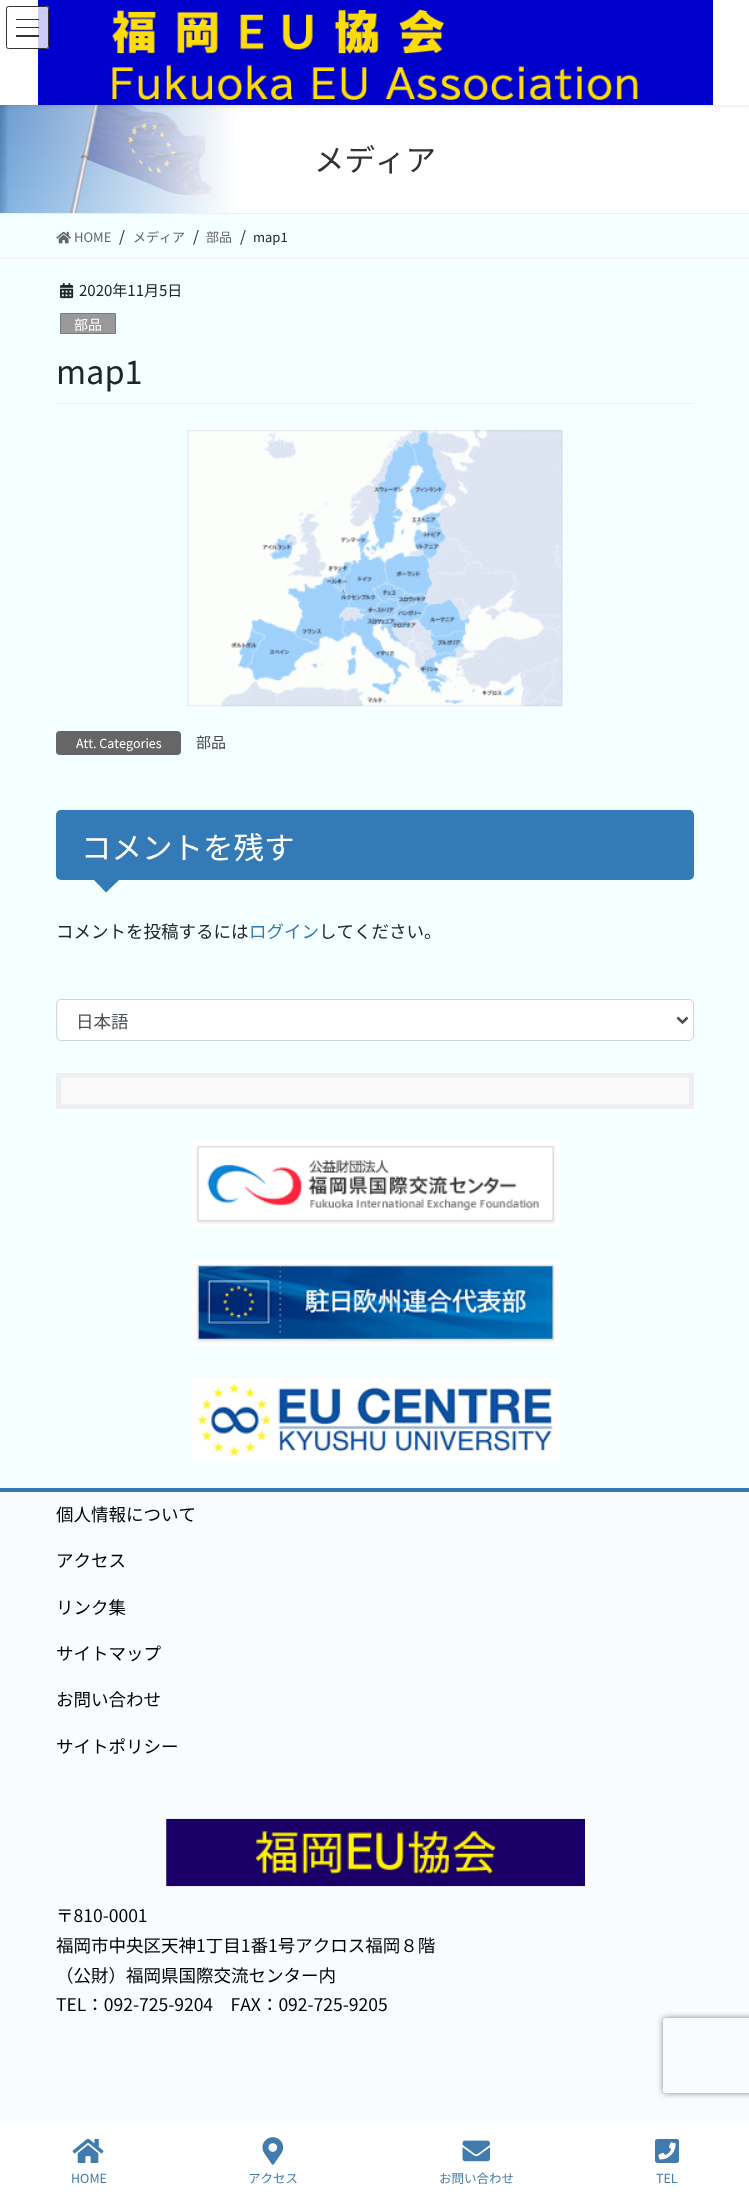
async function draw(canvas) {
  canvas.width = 749
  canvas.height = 2198
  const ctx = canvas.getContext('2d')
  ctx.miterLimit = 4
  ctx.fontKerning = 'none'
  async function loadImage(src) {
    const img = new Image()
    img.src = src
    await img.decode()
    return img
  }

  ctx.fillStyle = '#f4ffff'
  ctx.fillRect(0, 0, 749, 2198)
  ctx.drawImage(await loadImage('image1.png'), 0, 105, 749, 108)
  ctx.fillStyle = '#0000001a'
  ctx.filter = 'blur(2px)'
  ctx.beginPath()
  ctx.rect(0, 1, 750, 105)
  ctx.fill()
  ctx.filter = 'none'
  ctx.fillStyle = '#fff'
  ctx.fillRect(0, 0, 749, 105)
  ctx.fillStyle = '#0000cd'
  ctx.fillRect(38, 0, 675, 105)
  ctx.drawImage(await loadImage('image0.png'), 112, 9, 526, 91)
  ctx.fillStyle = '#ffffffcc'
  ctx.beginPath()
  ctx.roundRect(6, 6, 43, 43, 2.5)
  ctx.fill()
  ctx.fillStyle = '#000000cc'
  ctx.fillRect(16, 19, 23, 1)
  ctx.fillRect(16, 27, 23, 1)
  ctx.fillRect(16, 35, 23, 2)
  ctx.beginPath()
  ctx.roundRect(6.5, 6.5, 42, 42, 2)
  ctx.strokeStyle = '#333'
  ctx.stroke()
  ctx.fillStyle = '#eee'
  ctx.fillRect(0, 213, 749, 1)
  ctx.font = '100 30.5px Noto Sans JP'
  ctx.fillStyle = '#333'
  ctx.fillText('メディア', 314, 171)
  ctx.fillStyle = '#f3f3f3'
  ctx.fillRect(0, 258, 749, 1)
  ctx.drawImage(await loadImage('image2.png'), 56, 231, 15, 13)
  ctx.font = '100 13px Noto Sans JP'
  ctx.fillStyle = '#666'
  ctx.fillText('HOME', 74, 242)
  ctx.font = '100 15px Noto Sans JP'
  ctx.fillStyle = '#212529'
  ctx.fillText('/', 119, 242)
  ctx.font = '100 13px Noto Sans JP'
  ctx.fillStyle = '#666'
  ctx.fillText('メディア', 133, 242)
  ctx.font = '100 15px Noto Sans JP'
  ctx.fillStyle = '#212529'
  ctx.fillText('/', 193, 242)
  ctx.font = '100 13px Noto Sans JP'
  ctx.fillStyle = '#666'
  ctx.fillText('部品', 206, 242)
  ctx.font = '100 15px Noto Sans JP'
  ctx.fillStyle = '#212529'
  ctx.fillText('/', 240, 242)
  ctx.font = '100 13px Noto Sans JP'
  ctx.fillText('map1', 253, 242)
  ctx.fillStyle = '#e8f2f2'
  ctx.fillRect(56, 403, 638, 1)
  ctx.drawImage(await loadImage('image3.png'), 60, 283, 14, 16)
  ctx.font = '100 15px Noto Sans JP'
  ctx.fillStyle = '#212529'
  ctx.fillText('2020年11月5日', 79, 296)
  ctx.fillStyle = '#999'
  ctx.beginPath()
  ctx.rect(60.5, 313.5, 55, 20)
  ctx.fill()
  ctx.strokeStyle = '#7a7a7a'
  ctx.stroke()
  ctx.font = '100 14px Noto Sans JP'
  ctx.fillStyle = '#fff'
  ctx.fillText('部品', 74, 330)
  ctx.font = '100 32.5px Noto Sans JP'
  ctx.fillStyle = '#212529'
  ctx.fillText('map1', 56, 384)
  ctx.drawImage(await loadImage('image4.png'), 187, 430, 376, 277)
  ctx.fillStyle = '#666'
  ctx.beginPath()
  ctx.roundRect(56, 731, 125, 24, 4)
  ctx.fill()
  ctx.font = '100 12.5px Noto Sans JP'
  ctx.fillStyle = '#fff'
  ctx.fillText('Att. Categories', 76, 748)
  ctx.font = '100 15px Noto Sans JP'
  ctx.fillStyle = '#464646'
  ctx.fillText('部品', 196, 748)
  ctx.fillStyle = '#337ab7'
  ctx.beginPath()
  ctx.roundRect(56, 810, 638, 70, 5)
  ctx.fill()
  ctx.font = '100 30.5px Noto Sans JP'
  ctx.fillStyle = '#fff'
  ctx.fillText('コメントを残す', 81, 859)
  ctx.fillStyle = '#337ab7'
  ctx.beginPath()
  ctx.moveTo(94, 880)
  ctx.lineTo(119, 880)
  ctx.lineTo(106, 892.5)
  ctx.closePath()
  ctx.fill()
  ctx.font = '100 17.5px Noto Sans JP'
  ctx.fillStyle = '#212529'
  ctx.fillText('コメントを投稿するには', 56, 938)
  ctx.fillStyle = '#337ab7'
  ctx.fillText('ログイン', 249, 938)
  ctx.fillStyle = '#212529'
  ctx.fillText('してください。', 319, 938)
  ctx.fillStyle = '#fff'
  ctx.beginPath()
  ctx.roundRect(58, 1000, 635, 40, 3)
  ctx.fill()
  ctx.beginPath()
  ctx.roundRect(56.5, 999.5, 637, 41, 4.5)
  ctx.strokeStyle = '#ced4da'
  ctx.stroke()
  ctx.beginPath()
  ctx.moveTo(677.5, 1017.5)
  ctx.lineTo(682.5, 1022.5)
  ctx.lineTo(687.5, 1017.5)
  ctx.strokeStyle = '#495057'
  ctx.lineWidth = 2.5
  ctx.stroke()
  ctx.fillStyle = '#495057'
  ctx.fillText('日本語', 76, 1028)
  ctx.fillStyle = '#f9f9f9'
  ctx.beginPath()
  ctx.rect(58.5, 1075.5, 633, 31)
  ctx.fill()
  ctx.strokeStyle = '#efefef'
  ctx.lineWidth = 5
  ctx.stroke()
  ctx.drawImage(await loadImage('image5.png'), 191, 1140, 369, 87)
  ctx.drawImage(await loadImage('image6.png'), 191, 1259, 369, 87)
  ctx.drawImage(await loadImage('image7.png'), 191, 1378, 369, 83)
  ctx.fillStyle = '#f9fcff'
  ctx.fillRect(0, 1492, 749, 629)
  ctx.fillStyle = '#337ab7'
  ctx.fillRect(0, 1488, 749, 4)
  ctx.fillStyle = '#000'
  ctx.fillText('個人情報について', 56, 1521)
  ctx.fillText('アクセス', 56, 1567)
  ctx.fillText('リンク集', 56, 1614)
  ctx.fillText('サイトマップ', 56, 1660)
  ctx.fillText('お問い合わせ', 56, 1706)
  ctx.fillText('サイトポリシー', 56, 1753)
  ctx.drawImage(await loadImage('image8.png'), 166, 1818, 419, 69)
  ctx.fillText('〒810-0001', 56, 1922)
  ctx.fillText('福岡市中央区天神1丁目1番1号アクロス福岡８階', 56, 1952)
  ctx.fillText('（公財）福岡県国際交流センター内', 56, 1982)
  ctx.fillText('TEL：092-725-9204　FAX：092-725-9205', 56, 2011)
  ctx.save()
  ctx.beginPath()
  ctx.moveTo(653, 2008)
  ctx.lineTo(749, 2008)
  ctx.lineTo(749, 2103)
  ctx.lineTo(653, 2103)
  ctx.closePath()
  ctx.moveTo(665.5, 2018)
  ctx.lineTo(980.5, 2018)
  ctx.bezierCurveTo(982, 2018, 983, 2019, 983, 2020.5)
  ctx.lineTo(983, 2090.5)
  ctx.bezierCurveTo(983, 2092, 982, 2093, 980.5, 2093)
  ctx.lineTo(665.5, 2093)
  ctx.bezierCurveTo(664, 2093, 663, 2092, 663, 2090.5)
  ctx.lineTo(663, 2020.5)
  ctx.bezierCurveTo(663, 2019, 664, 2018, 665.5, 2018)
  ctx.closePath()
  ctx.clip('evenodd')
  ctx.fillStyle = '#808080'
  ctx.filter = 'blur(3px)'
  ctx.beginPath()
  ctx.roundRect(663, 2018, 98, 75, 2.5)
  ctx.fill()
  ctx.filter = 'none'
  ctx.restore()
  ctx.fillStyle = '#fff'
  ctx.fillRect(0, 2121, 749, 77)
  ctx.drawImage(await loadImage('image9.png'), 72, 2138, 32, 25)
  ctx.font = '100 12.5px Noto Sans JP'
  ctx.fillStyle = '#437cad'
  ctx.fillText('HOME', 71, 2183)
  ctx.drawImage(await loadImage('image10.png'), 262, 2137, 22, 28)
  ctx.fillText('アクセス', 248, 2183)
  ctx.drawImage(await loadImage('image11.png'), 462, 2140, 28, 22)
  ctx.fillText('お問い合わせ', 439, 2183)
  ctx.drawImage(await loadImage('image12.png'), 655, 2138, 25, 25)
  ctx.fillText('TEL', 656, 2183)
}

draw(document.querySelector('canvas'))
